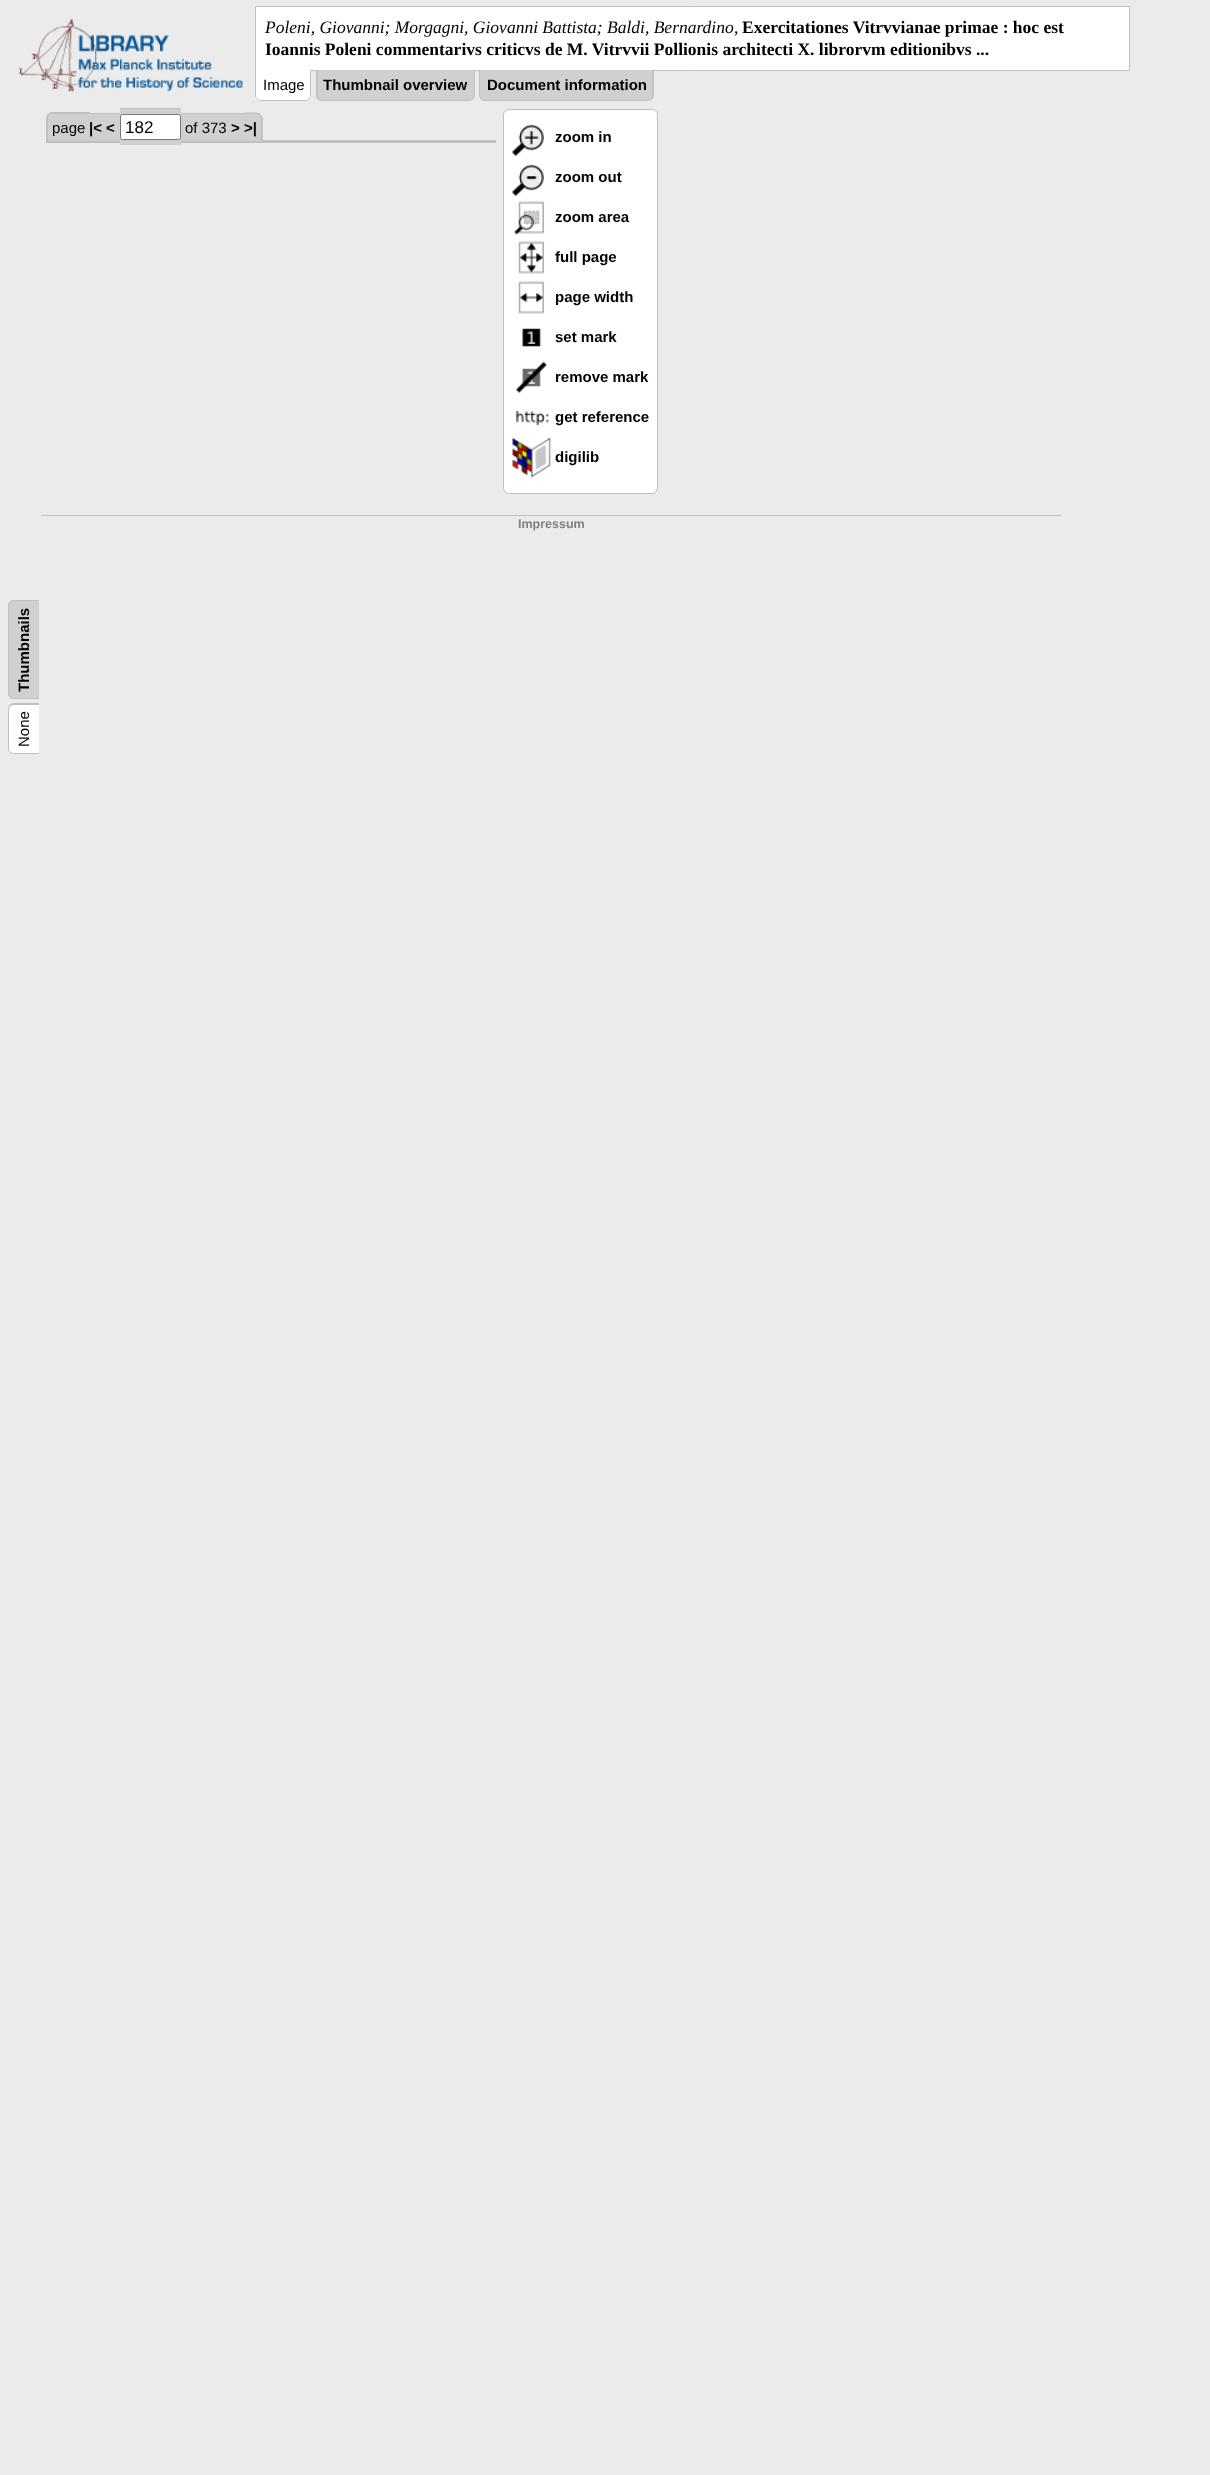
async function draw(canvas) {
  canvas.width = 1210
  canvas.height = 2475
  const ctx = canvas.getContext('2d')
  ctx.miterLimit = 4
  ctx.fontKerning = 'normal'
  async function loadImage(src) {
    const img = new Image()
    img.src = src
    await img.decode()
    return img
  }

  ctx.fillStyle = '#ebebeb'
  ctx.fillRect(0, 0, 1210, 2475)
  ctx.drawImage(await loadImage('image0.png'), 18, 18, 225, 74)
  ctx.fillStyle = '#fff'
  ctx.beginPath()
  ctx.rect(255.5, 6.5, 874, 64)
  ctx.fill()
  ctx.strokeStyle = '#c0c0c0'
  ctx.stroke()
  ctx.font = 'italic 17.5px Liberation Serif'
  ctx.fillStyle = '#000'
  ctx.fillText('Poleni, Giovanni; Morgagni, Giovanni Battista; Baldi, Bernardino', 265, 33)
  ctx.font = '17.5px Liberation Serif'
  ctx.fillText(',', 734, 33)
  ctx.font = 'bold 17.5px Liberation Serif'
  ctx.fillText('Exercitationes Vitrvvianae primae : hoc est', 742, 33)
  ctx.fillText('Ioannis Poleni commentarivs criticvs de M. Vitrvvii Pollionis architecti X. librorvm editionibvs ...', 265, 55)
  ctx.fillStyle = '#fff'
  ctx.beginPath()
  ctx.roundRect(255, 70, 56, 31, [0, 0, 6, 6])
  ctx.fill()
  ctx.fillStyle = '#c0c0c0'
  ctx.beginPath()
  ctx.moveTo(255, 70)
  ctx.lineTo(311, 70)
  ctx.lineTo(311, 95)
  ctx.bezierCurveTo(311, 98, 308, 101, 305, 101)
  ctx.lineTo(261, 101)
  ctx.bezierCurveTo(258, 101, 255, 98, 255, 95)
  ctx.closePath()
  ctx.moveTo(256, 70)
  ctx.lineTo(310, 70)
  ctx.lineTo(310, 95)
  ctx.bezierCurveTo(310, 98, 308, 100, 305, 100)
  ctx.lineTo(261, 100)
  ctx.bezierCurveTo(258, 100, 256, 98, 256, 95)
  ctx.closePath()
  ctx.fill('evenodd')
  ctx.font = '15px Liberation Sans'
  ctx.fillStyle = '#000'
  ctx.fillText('Image', 263, 90)
  ctx.fillStyle = '#d0d0d0'
  ctx.beginPath()
  ctx.roundRect(316, 70, 159, 31, [0, 0, 6, 6])
  ctx.fill()
  ctx.fillStyle = '#c0c0c0'
  ctx.beginPath()
  ctx.moveTo(316, 70)
  ctx.lineTo(475, 70)
  ctx.lineTo(475, 95)
  ctx.bezierCurveTo(475, 98, 472, 101, 469, 101)
  ctx.lineTo(322, 101)
  ctx.bezierCurveTo(319, 101, 316, 98, 316, 95)
  ctx.closePath()
  ctx.moveTo(318, 70)
  ctx.lineTo(474, 70)
  ctx.lineTo(474, 95)
  ctx.bezierCurveTo(474, 98, 472, 100, 469, 100)
  ctx.lineTo(322, 100)
  ctx.bezierCurveTo(320, 100, 318, 98, 318, 95)
  ctx.closePath()
  ctx.fill('evenodd')
  ctx.font = 'bold 15px Liberation Sans'
  ctx.fillStyle = '#000'
  ctx.fillText('Thumbnail overview', 323, 90)
  ctx.fillStyle = '#d0d0d0'
  ctx.beginPath()
  ctx.roundRect(479, 70, 175, 31, [0, 0, 6, 6])
  ctx.fill()
  ctx.fillStyle = '#c0c0c0'
  ctx.beginPath()
  ctx.moveTo(479, 70)
  ctx.lineTo(654, 70)
  ctx.lineTo(654, 95)
  ctx.bezierCurveTo(654, 98, 651, 101, 648, 101)
  ctx.lineTo(485, 101)
  ctx.bezierCurveTo(482, 101, 479, 98, 479, 95)
  ctx.closePath()
  ctx.moveTo(480, 70)
  ctx.lineTo(652, 70)
  ctx.lineTo(652, 95)
  ctx.bezierCurveTo(652, 98, 650, 100, 648, 100)
  ctx.lineTo(485, 100)
  ctx.bezierCurveTo(482, 100, 480, 98, 480, 95)
  ctx.closePath()
  ctx.fill('evenodd')
  ctx.fillStyle = '#000'
  ctx.fillText('Document information', 487, 90)
  ctx.fillStyle = '#c0c0c0'
  ctx.fillRect(46, 140, 450, 3)
  ctx.fillStyle = '#d0d0d0'
  ctx.beginPath()
  ctx.roundRect(46, 113, 44, 28, [6, 0, 0, 0])
  ctx.fill()
  ctx.fillStyle = '#c0c0c0'
  ctx.beginPath()
  ctx.moveTo(52, 112)
  ctx.lineTo(90, 112)
  ctx.lineTo(90, 141)
  ctx.lineTo(46, 141)
  ctx.lineTo(46, 119)
  ctx.bezierCurveTo(46, 115, 49, 112, 52, 112)
  ctx.closePath()
  ctx.moveTo(52, 114)
  ctx.lineTo(90, 114)
  ctx.lineTo(90, 141)
  ctx.lineTo(48, 141)
  ctx.lineTo(48, 119)
  ctx.bezierCurveTo(48, 116, 50, 114, 52, 114)
  ctx.closePath()
  ctx.fill('evenodd')
  ctx.fillStyle = '#d0d0d0'
  ctx.fillRect(90, 114, 13, 27)
  ctx.fillStyle = '#c0c0c0'
  ctx.fillRect(90, 113, 13, 1)
  ctx.fillStyle = '#d0d0d0'
  ctx.fillRect(103, 113, 3, 28)
  ctx.fillStyle = '#c0c0c0'
  ctx.fillRect(103, 113, 12, 1)
  ctx.fillStyle = '#d0d0d0'
  ctx.fillRect(106, 114, 9, 27)
  ctx.fillRect(115, 113, 5, 28)
  ctx.fillStyle = '#c0c0c0'
  ctx.fillRect(115, 113, 5, 1)
  ctx.fillStyle = '#d0d0d0'
  ctx.fillRect(120, 109, 61, 36)
  ctx.fillStyle = '#c0c0c0'
  ctx.fillRect(120, 108, 61, 1)
  ctx.fillStyle = '#d0d0d0'
  ctx.fillRect(181, 113, 4, 28)
  ctx.fillStyle = '#c0c0c0'
  ctx.fillRect(181, 113, 59, 1)
  ctx.fillStyle = '#d0d0d0'
  ctx.fillRect(185, 114, 55, 27)
  ctx.fillRect(240, 113, 4, 28)
  ctx.fillStyle = '#c0c0c0'
  ctx.fillRect(240, 113, 4, 1)
  ctx.fillStyle = '#d0d0d0'
  ctx.beginPath()
  ctx.roundRect(244, 113, 19, 28, [0, 6, 0, 0])
  ctx.fill()
  ctx.fillStyle = '#c0c0c0'
  ctx.beginPath()
  ctx.moveTo(244, 112.5)
  ctx.lineTo(256, 112.5)
  ctx.bezierCurveTo(259.5, 112.5, 262.5, 115.5, 262.5, 119)
  ctx.lineTo(262.5, 141)
  ctx.lineTo(244, 141)
  ctx.closePath()
  ctx.moveTo(244, 114)
  ctx.lineTo(256, 114)
  ctx.bezierCurveTo(259, 114, 261, 116, 261, 119)
  ctx.lineTo(261, 141)
  ctx.lineTo(244, 141)
  ctx.closePath()
  ctx.fill('evenodd')
  ctx.font = '15px Liberation Sans'
  ctx.fillStyle = '#000'
  ctx.fillText('page', 52, 133)
  ctx.font = 'bold 15px Liberation Sans'
  ctx.fillText('|< <', 89, 133)
  ctx.fillStyle = '#fff'
  ctx.beginPath()
  ctx.roundRect(120.5, 114.5, 60, 25, 2)
  ctx.fill()
  ctx.strokeStyle = '#767676'
  ctx.stroke()
  ctx.font = '17px Liberation Sans'
  ctx.fillStyle = '#000'
  ctx.fillText('182', 125, 133)
  ctx.font = '15px Liberation Sans'
  ctx.fillText('of 373', 185, 133)
  ctx.font = 'bold 15px Liberation Sans'
  ctx.fillText('> >|', 231, 133)
  ctx.fillStyle = '#fff'
  ctx.beginPath()
  ctx.roundRect(503.5, 109.5, 154, 384, 5.5)
  ctx.fill()
  ctx.strokeStyle = '#c0c0c0'
  ctx.stroke()
  ctx.drawImage(await loadImage('image1.png'), 511, 124, 33, 33)
  ctx.fillStyle = '#000'
  ctx.fillText('zoom in', 555, 142)
  ctx.drawImage(await loadImage('image2.png'), 511, 164, 33, 33)
  ctx.fillText('zoom out', 555, 182)
  ctx.drawImage(await loadImage('image3.png'), 513, 201, 32, 34)
  ctx.fillText('zoom area', 555, 222)
  ctx.drawImage(await loadImage('image4.png'), 518, 241, 27, 33)
  ctx.fillText('full page', 555, 262)
  ctx.drawImage(await loadImage('image5.png'), 518, 281, 27, 33)
  ctx.fillText('page width', 555, 302)
  ctx.drawImage(await loadImage('image6.png'), 522, 328, 20, 19)
  ctx.fillText('set mark', 555, 342)
  ctx.drawImage(await loadImage('image7.png'), 516, 361, 31, 32)
  ctx.fillText('remove mark', 555, 382)
  ctx.drawImage(await loadImage('image8.png'), 516, 410, 33, 16)
  ctx.fillText('get reference', 555, 422)
  ctx.drawImage(await loadImage('image9.png'), 512, 437, 40, 41)
  ctx.fillText('digilib', 555, 462)
  ctx.fillStyle = '#d0d0d0'
  ctx.beginPath()
  ctx.moveTo(8, 693)
  ctx.lineTo(8, 606)
  ctx.bezierCurveTo(8, 603, 10, 600, 14, 600)
  ctx.lineTo(39, 600)
  ctx.lineTo(39, 699)
  ctx.lineTo(14, 699)
  ctx.bezierCurveTo(10, 699, 8, 696, 8, 693)
  ctx.closePath()
  ctx.fill()
  ctx.fillStyle = '#c0c0c0'
  ctx.beginPath()
  ctx.moveTo(8, 693)
  ctx.lineTo(8, 606)
  ctx.bezierCurveTo(8, 603, 10, 600, 14, 600)
  ctx.lineTo(39, 600)
  ctx.lineTo(39, 699)
  ctx.lineTo(14, 699)
  ctx.bezierCurveTo(10, 699, 8, 696, 8, 693)
  ctx.closePath()
  ctx.moveTo(9, 693)
  ctx.lineTo(9, 606)
  ctx.bezierCurveTo(9, 603, 11, 601, 14, 601)
  ctx.lineTo(39, 601)
  ctx.lineTo(39, 698)
  ctx.lineTo(14, 698)
  ctx.bezierCurveTo(11, 698, 9, 696, 9, 693)
  ctx.closePath()
  ctx.fill('evenodd')
  ctx.fillStyle = '#000'
  ctx.save()
  ctx.translate(29, 692)
  ctx.rotate(-90 * Math.PI / 180)
  ctx.fillText('Thumbnails', 0, 0)
  ctx.restore()
  ctx.fillStyle = '#fff'
  ctx.beginPath()
  ctx.moveTo(8, 748)
  ctx.lineTo(8, 710)
  ctx.bezierCurveTo(8, 706, 10, 703, 14, 703)
  ctx.lineTo(39, 703)
  ctx.lineTo(39, 754)
  ctx.lineTo(14, 754)
  ctx.bezierCurveTo(10, 754, 8, 751, 8, 748)
  ctx.closePath()
  ctx.fill()
  ctx.fillStyle = '#c0c0c0'
  ctx.beginPath()
  ctx.moveTo(8, 748)
  ctx.lineTo(8, 710)
  ctx.bezierCurveTo(8, 706, 10, 703, 14, 703)
  ctx.lineTo(39, 703)
  ctx.lineTo(39, 754)
  ctx.lineTo(14, 754)
  ctx.bezierCurveTo(10, 754, 8, 751, 8, 748)
  ctx.closePath()
  ctx.moveTo(9, 748)
  ctx.lineTo(9, 710)
  ctx.bezierCurveTo(9, 707, 11, 705, 14, 705)
  ctx.lineTo(39, 705)
  ctx.lineTo(39, 753)
  ctx.lineTo(14, 753)
  ctx.bezierCurveTo(11, 753, 9, 751, 9, 748)
  ctx.closePath()
  ctx.fill('evenodd')
  ctx.font = '15px Liberation Sans'
  ctx.fillStyle = '#000'
  ctx.save()
  ctx.translate(29, 747)
  ctx.rotate(-90 * Math.PI / 180)
  ctx.fillText('None', 0, 0)
  ctx.restore()
  ctx.fillStyle = '#c0c0c0'
  ctx.fillRect(41, 515, 1020, 1)
  ctx.font = 'bold 12.5px Liberation Sans'
  ctx.fillStyle = '#808080'
  ctx.fillText('Impressum', 518, 528)
}

draw(document.querySelector('canvas'))
